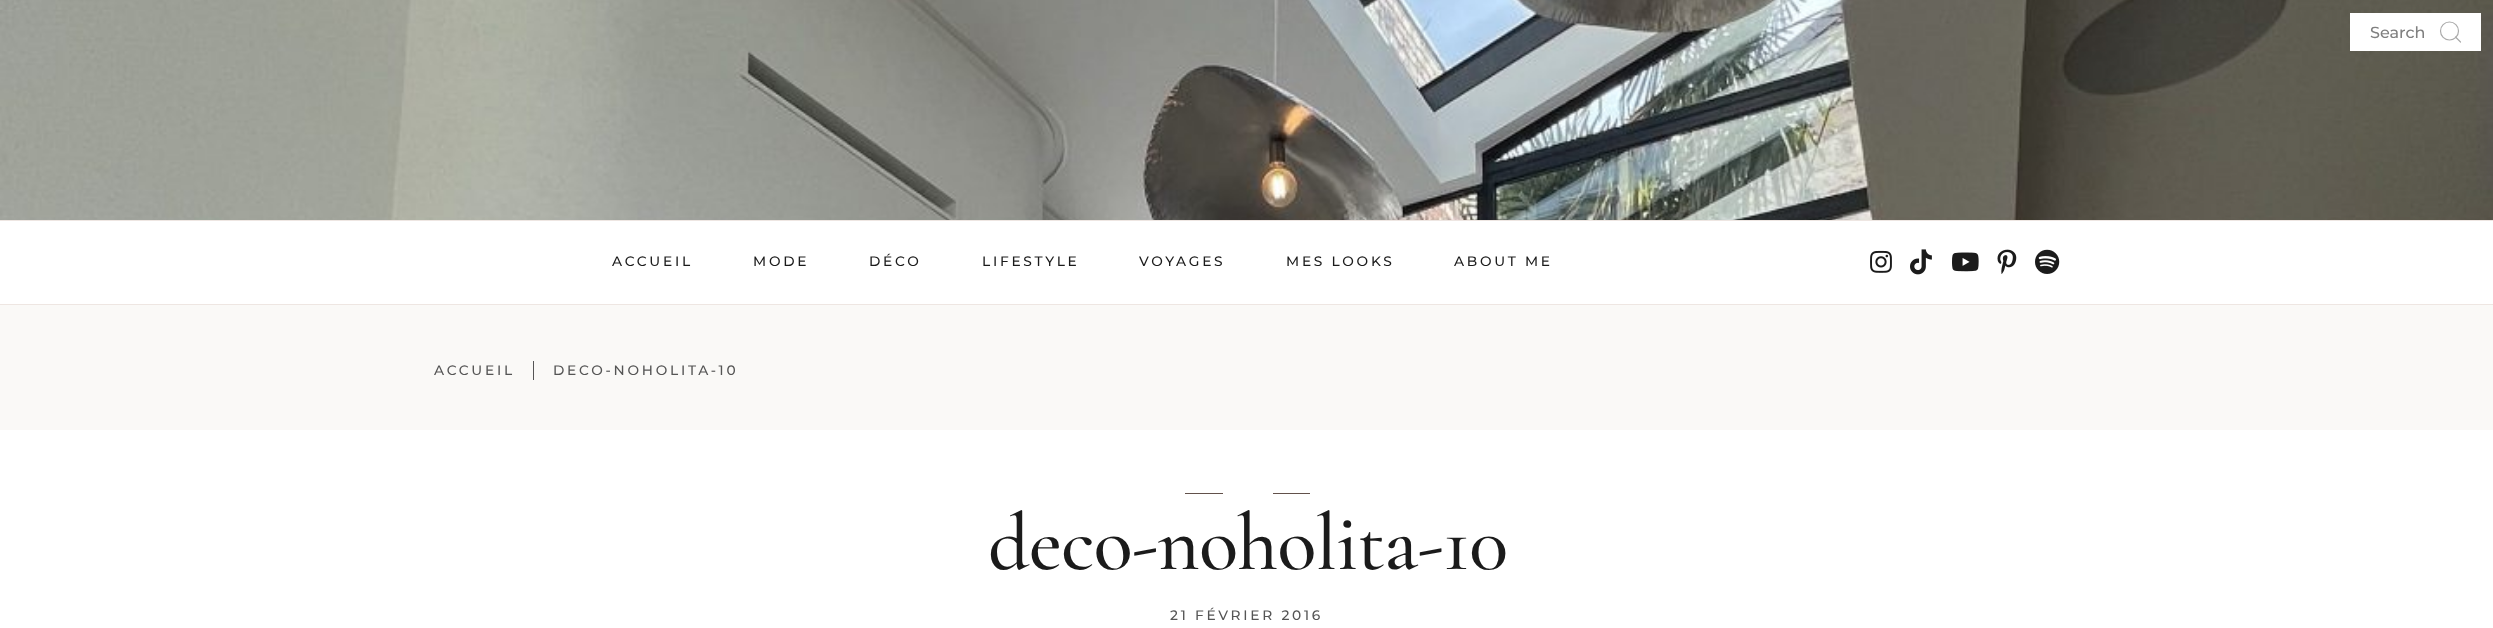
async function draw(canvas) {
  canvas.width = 2493
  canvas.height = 628
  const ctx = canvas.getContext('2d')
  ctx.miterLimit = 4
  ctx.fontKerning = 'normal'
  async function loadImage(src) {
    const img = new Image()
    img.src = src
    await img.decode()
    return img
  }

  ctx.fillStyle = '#fff'
  ctx.fillRect(0, 0, 2493, 628)
  ctx.drawImage(await loadImage('image0.png'), 0, 0, 2493, 220)
  ctx.fillRect(2350, 13, 131, 38)
  ctx.font = '500 16px Montserrat'
  ctx.fillStyle = '#808080'
  ctx.fillText('Search', 2370, 38)
  ctx.beginPath()
  ctx.arc(2449.5, 31, 9, 0, 2 * Math.PI)
  ctx.strokeStyle = '#ababab'
  ctx.lineWidth = 1.2
  ctx.stroke()
  ctx.beginPath()
  ctx.moveTo(2460.5, 42)
  ctx.lineTo(2455.5, 37)
  ctx.lineCap = 'round'
  ctx.lineJoin = 'round'
  ctx.stroke()
  ctx.fillStyle = '#eee6e2'
  ctx.fillRect(0, 220, 2493, 1)
  ctx.letterSpacing = '2.75px'
  ctx.font = '500 13.75px Montserrat'
  ctx.fillStyle = '#1b1b1b'
  ctx.fillText('ACCUEIL', 612, 266)
  ctx.fillText('MODE', 753, 266)
  ctx.fillText('DÉCO', 869, 266)
  ctx.fillText('LIFESTYLE', 982, 266)
  ctx.fillText('VOYAGES', 1139, 266)
  ctx.fillText('MES LOOKS', 1286, 266)
  ctx.fillText('ABOUT ME', 1454, 266)
  ctx.drawImage(await loadImage('image1.png'), 1870, 250, 22, 23)
  ctx.drawImage(await loadImage('image2.png'), 1910, 249, 22, 26)
  ctx.drawImage(await loadImage('image3.png'), 1952, 252, 27, 20)
  ctx.drawImage(await loadImage('image4.png'), 1997, 249, 20, 25)
  ctx.drawImage(await loadImage('image5.png'), 2035, 249, 25, 25)
  ctx.fillStyle = '#eee6e2'
  ctx.fillRect(0, 304, 2493, 1)
  ctx.fillStyle = '#faf9f7'
  ctx.fillRect(0, 305, 2493, 125)
  ctx.fillStyle = '#555'
  ctx.fillText('ACCUEIL', 434, 375)
  ctx.fillRect(533, 361, 1, 19)
  ctx.fillText('DECO-NOHOLITA-10', 553, 375)
  ctx.fillStyle = '#62514b'
  ctx.fillRect(1185, 493, 38, 1)
  ctx.fillRect(1273, 493, 37, 1)
  ctx.letterSpacing = '-0.75px'
  ctx.font = '500 81.25px Cormorant Garamond'
  ctx.fillStyle = '#1b1b1b'
  ctx.fillText('deco-noholita-10', 988, 569)
  ctx.letterSpacing = '2.75px'
  ctx.font = '500 13.75px Montserrat'
  ctx.fillStyle = '#555'
  ctx.fillText('21 FÉVRIER 2016', 1170, 620)
}

draw(document.querySelector('canvas'))
